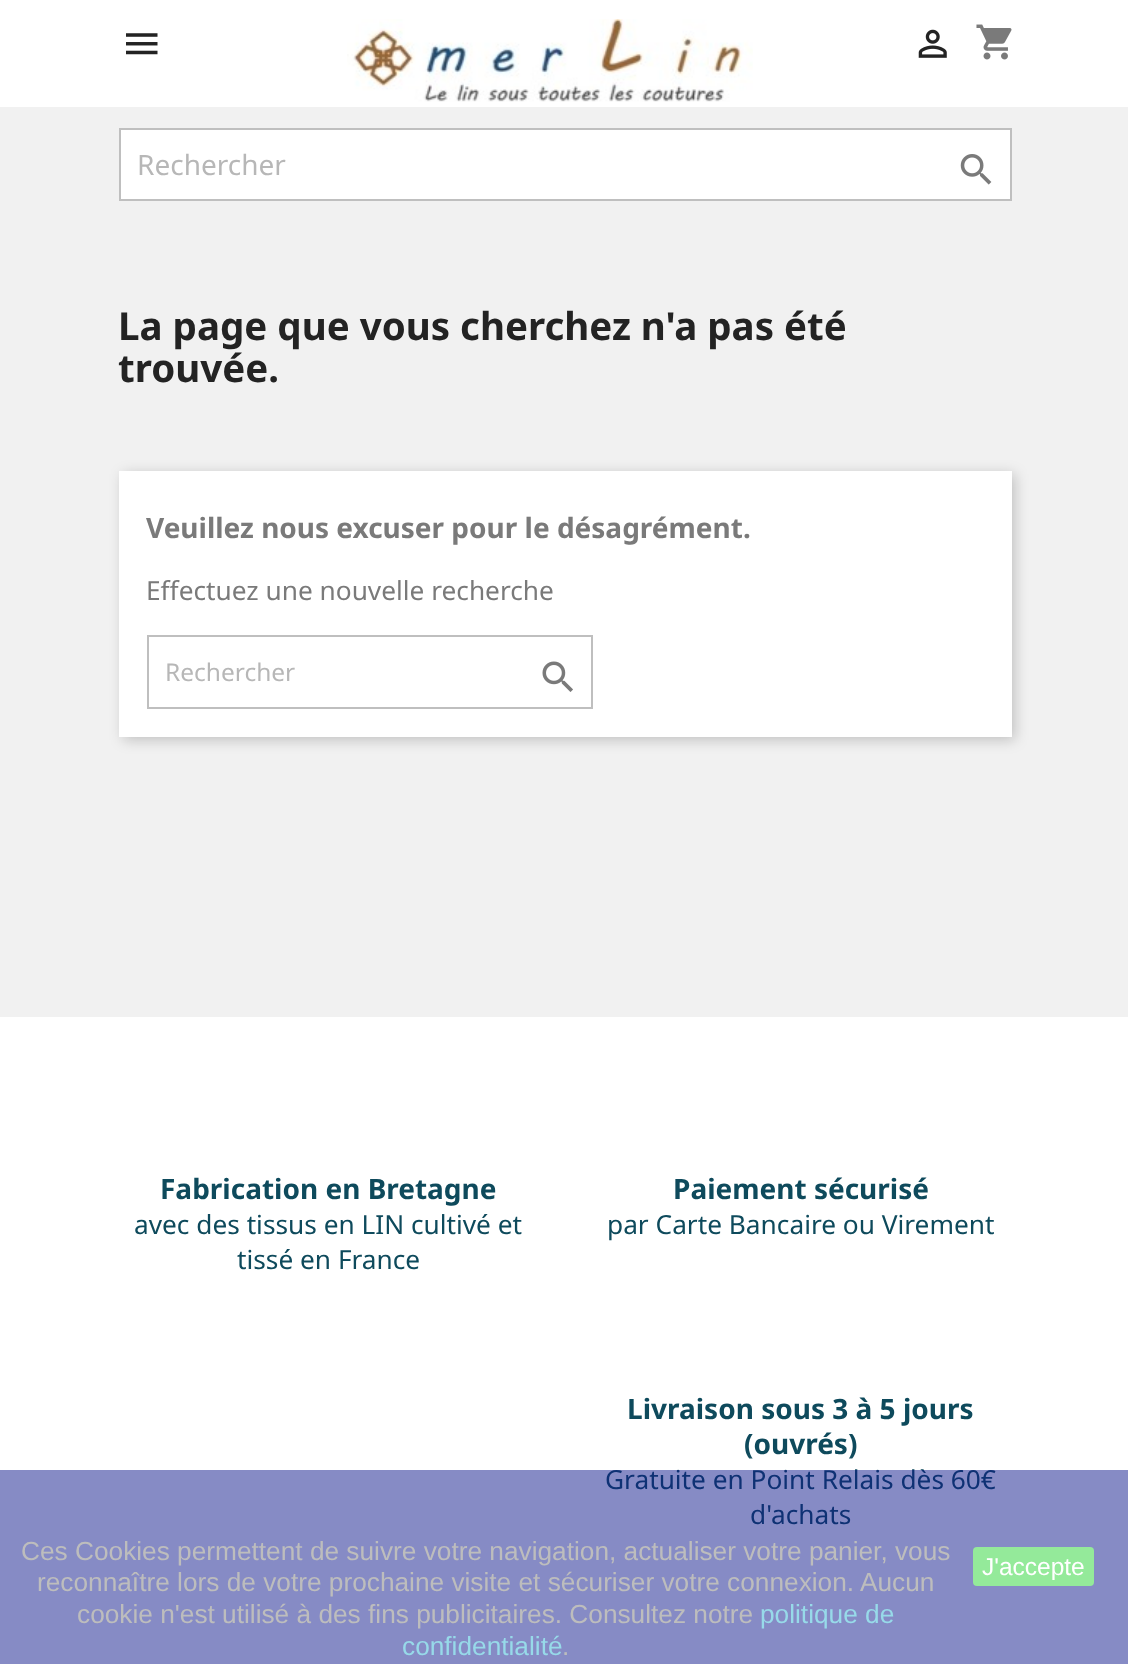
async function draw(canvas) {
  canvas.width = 1128
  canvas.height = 1664
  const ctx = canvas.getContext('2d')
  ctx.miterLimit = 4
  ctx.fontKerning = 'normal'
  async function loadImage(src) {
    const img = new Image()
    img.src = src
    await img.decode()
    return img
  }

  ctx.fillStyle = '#fff'
  ctx.fillRect(0, 0, 1128, 1664)
  ctx.fillStyle = '#f1f1f1'
  ctx.fillRect(0, 107, 1128, 910)
  ctx.drawImage(await loadImage('image0.png'), 126, 33, 32, 22)
  ctx.drawImage(await loadImage('image1.png'), 347, 19, 406, 83)
  ctx.drawImage(await loadImage('image2.png'), 918, 29, 29, 29)
  ctx.drawImage(await loadImage('image3.png'), 976, 24, 36, 36)
  ctx.fillStyle = '#fff'
  ctx.beginPath()
  ctx.rect(120, 129, 891, 71)
  ctx.fill()
  ctx.strokeStyle = '#bfbfbf'
  ctx.lineWidth = 2
  ctx.stroke()
  ctx.font = '28px Noto Sans'
  ctx.fillStyle = '#b7b7b7'
  ctx.fillText('Rechercher', 137, 175)
  ctx.drawImage(await loadImage('image4.png'), 960, 154, 32, 31)
  ctx.font = 'bold 38.5px Noto Sans'
  ctx.fillStyle = '#232323'
  ctx.fillText('La page que vous cherchez n\'a pas été', 118, 340)
  ctx.fillText('trouvée.', 118, 382)
  ctx.fillStyle = '#00000033'
  ctx.filter = 'blur(7px)'
  ctx.beginPath()
  ctx.rect(123, 474, 892, 266)
  ctx.fill()
  ctx.filter = 'none'
  ctx.fillStyle = '#fff'
  ctx.fillRect(119, 471, 893, 266)
  ctx.font = 'bold 28px Noto Sans'
  ctx.fillStyle = '#7a7a7a'
  ctx.fillText('Veuillez nous excuser pour le désagrément.', 146, 538)
  ctx.font = '26.25px Noto Sans'
  ctx.fillText('Effectuez une nouvelle recherche', 146, 600)
  ctx.strokeRect(148, 636, 444, 72)
  ctx.font = '24.5px Noto Sans'
  ctx.fillStyle = '#b7b7b7'
  ctx.fillText('Rechercher', 165, 681)
  ctx.drawImage(await loadImage('image5.png'), 542, 661, 31, 31)
  ctx.font = 'bold 28px Noto Sans'
  ctx.fillStyle = '#0e4a5c'
  ctx.fillText('Fabrication en Bretagne', 160, 1199)
  ctx.font = '26.25px Noto Sans'
  ctx.fillText('avec des tissus en LIN cultivé et', 134, 1234)
  ctx.fillText('tissé en France', 237, 1269)
  ctx.font = 'bold 28px Noto Sans'
  ctx.fillText('Paiement sécurisé', 673, 1199)
  ctx.font = '26.25px Noto Sans'
  ctx.fillText('par Carte Bancaire ou Virement', 607, 1234)
  ctx.font = 'bold 28px Noto Sans'
  ctx.fillText('Livraison sous 3 à 5 jours', 627, 1419)
  ctx.fillText('(ouvrés)', 744, 1454)
  ctx.font = '26.25px Noto Sans'
  ctx.fillText('Gratuite en Point Relais dès 60€', 605, 1489)
  ctx.fillText('d\'achats', 750, 1524)
  ctx.save()
  ctx.beginPath()
  ctx.rect(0, 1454, 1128, 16)
  ctx.clip()
  ctx.fillStyle = '#ffffff80'
  ctx.filter = 'blur(9px)'
  ctx.beginPath()
  ctx.rect(0, 1470, 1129, 194)
  ctx.fill()
  ctx.filter = 'none'
  ctx.restore()
  ctx.fillStyle = '#0e178c80'
  ctx.fillRect(0, 1470, 1128, 194)
  ctx.font = '26.25px Liberation Sans'
  ctx.fillStyle = '#bdbdbd'
  ctx.fillText('Ces Cookies permettent de suivre votre navigation, actualiser votre panier, vous', 21, 1560)
  ctx.fillText('reconnaître lors de votre prochaine visite et sécuriser votre connexion. Aucun', 37, 1591)
  ctx.fillText('cookie n\'est utilisé à des fins publicitaires. Consultez notre', 77, 1623)
  ctx.fillStyle = '#97dae9'
  ctx.fillText('politique de', 760, 1623)
  ctx.fillText('confidentialité', 402, 1655)
  ctx.fillStyle = '#bdbdbd'
  ctx.fillText('.', 562, 1655)
  ctx.fillStyle = '#94ea9a'
  ctx.beginPath()
  ctx.roundRect(973, 1547, 121, 39, 4)
  ctx.fill()
  ctx.font = '24.5px Liberation Sans'
  ctx.fillStyle = '#fff'
  ctx.fillText('J\'accepte', 982, 1575)
}

draw(document.querySelector('canvas'))
